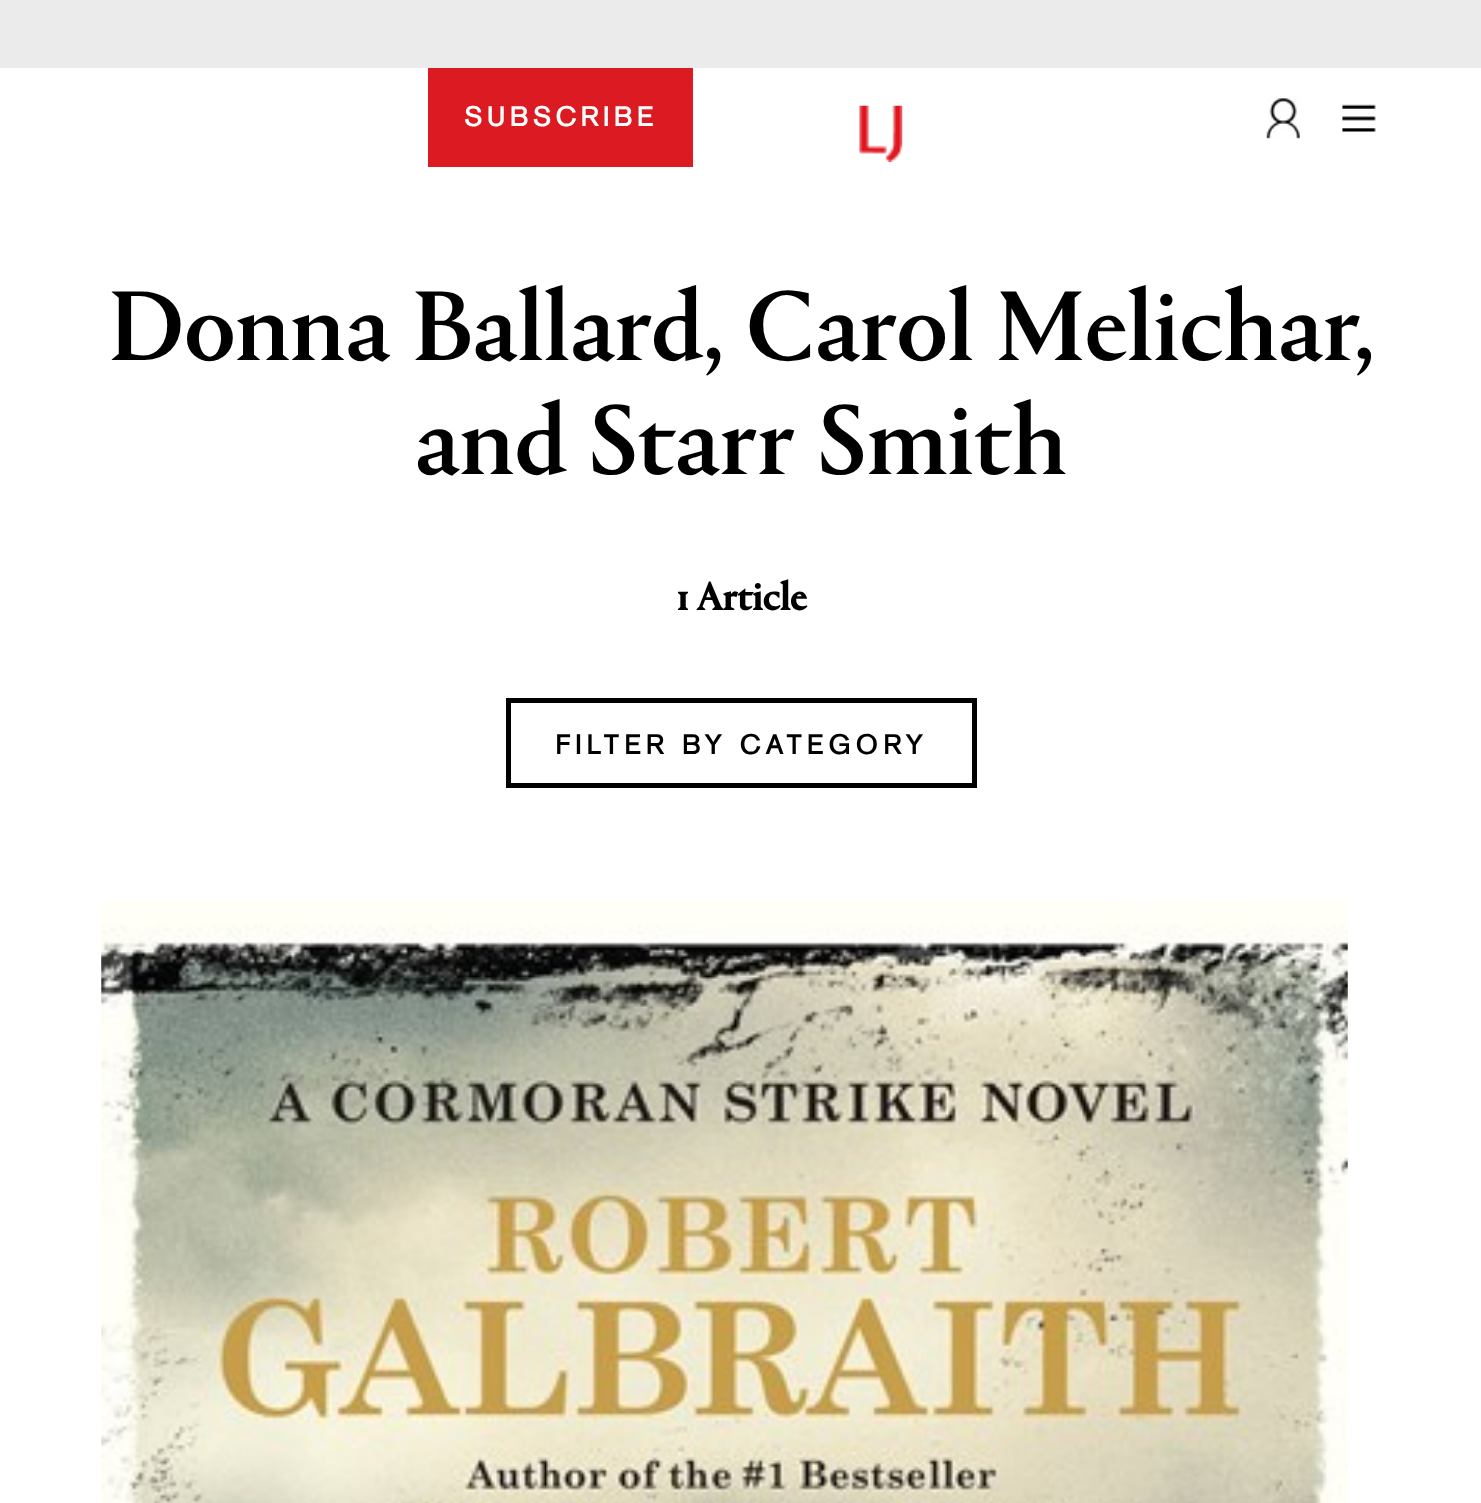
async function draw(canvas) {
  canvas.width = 1481
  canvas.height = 1503
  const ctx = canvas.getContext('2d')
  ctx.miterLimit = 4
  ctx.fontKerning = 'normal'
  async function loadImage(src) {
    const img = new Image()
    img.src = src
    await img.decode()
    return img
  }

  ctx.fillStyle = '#fff'
  ctx.fillRect(0, 0, 1481, 1503)
  ctx.fillStyle = '#ebebeb'
  ctx.fillRect(0, 0, 1481, 68)
  ctx.fillStyle = '#db1a21'
  ctx.fillRect(428, 68, 265, 99)
  ctx.letterSpacing = '4.5px'
  ctx.font = 'bold 27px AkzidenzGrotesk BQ'
  ctx.fillStyle = '#fff'
  ctx.fillText('SUBSCRIBE', 464, 126)
  ctx.drawImage(await loadImage('image0.png'), 859, 105, 44, 57)
  ctx.drawImage(await loadImage('image1.png'), 1266, 97, 34, 42)
  ctx.drawImage(await loadImage('image2.png'), 1342, 104, 34, 28)
  ctx.letterSpacing = '0px'
  ctx.font = '500 103.5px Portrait'
  ctx.fillStyle = '#000'
  ctx.fillText('Donna Ballard, Carol Melichar,', 108, 360)
  ctx.fillText('and Starr Smith', 415, 474)
  ctx.font = 'bold 40.5px Portrait'
  ctx.fillText('1 Article', 677, 610)
  ctx.strokeStyle = '#000'
  ctx.lineWidth = 5
  ctx.strokeRect(508.5, 700.5, 466, 85)
  ctx.letterSpacing = '5.4px'
  ctx.font = 'bold 27px AkzidenzGrotesk BQ'
  ctx.fillText('FILTER BY CATEGORY', 555, 754)
  ctx.drawImage(await loadImage('image3.png'), 101, 900, 1247, 603)
}

draw(document.querySelector('canvas'))
